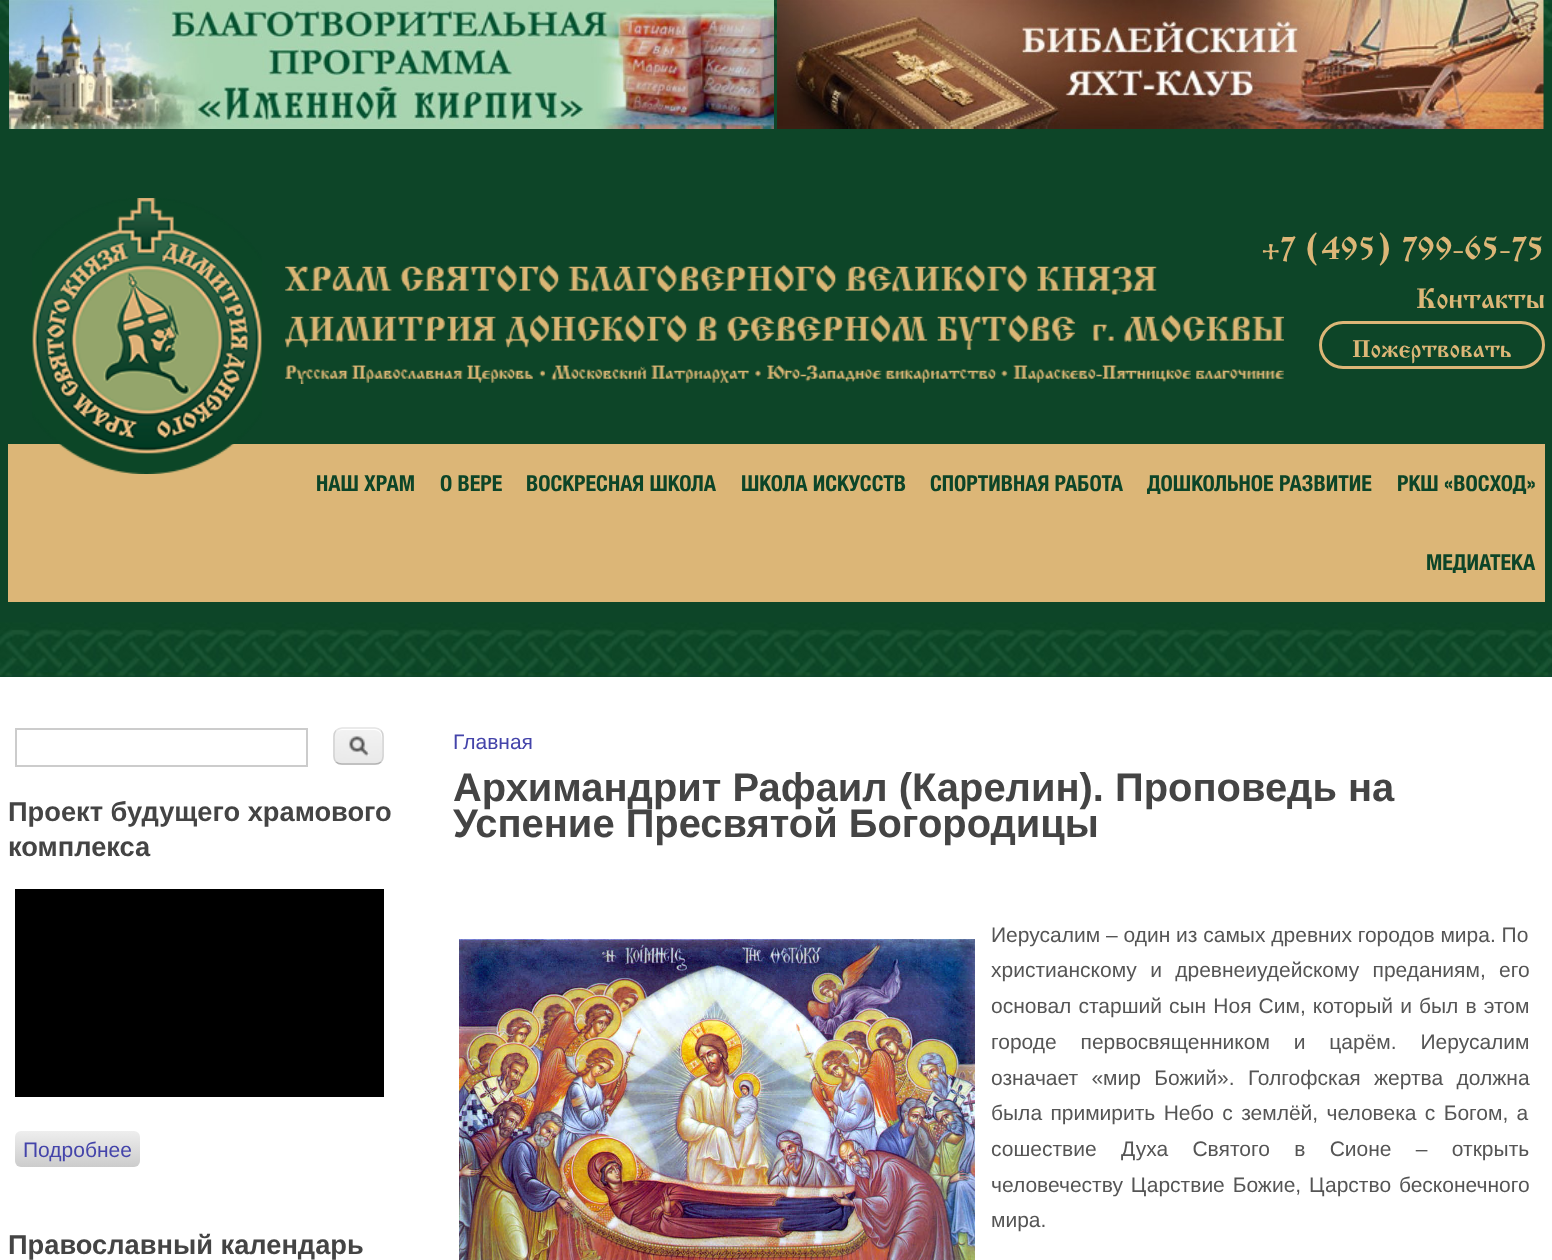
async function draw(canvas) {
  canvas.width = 1552
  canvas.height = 1260
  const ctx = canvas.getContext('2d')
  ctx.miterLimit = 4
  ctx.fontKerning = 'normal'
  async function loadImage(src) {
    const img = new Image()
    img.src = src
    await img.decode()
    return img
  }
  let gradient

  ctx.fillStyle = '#fff'
  ctx.fillRect(0, 0, 1552, 1260)
  ctx.fillStyle = '#0d4528'
  ctx.fillRect(0, 69, 1552, 608)
  ctx.drawImage(await loadImage('image0.png'), 0, 0, 1552, 677)
  ctx.drawImage(await loadImage('image1.png'), 9, 0, 765, 129)
  ctx.drawImage(await loadImage('image2.png'), 777, 0, 767, 129)
  ctx.fillStyle = '#dcb677'
  ctx.fillRect(8, 444, 1537, 158)
  ctx.drawImage(await loadImage('image3.png'), 32, 198, 230, 276)
  ctx.font = 'bold 33.5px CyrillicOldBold'
  ctx.fillText('+7 (495) 799-65-75', 1262, 259)
  ctx.drawImage(await loadImage('image4.png'), 285, 265, 999, 119)
  ctx.font = 'bold 29.5px CyrillicOldBold'
  ctx.fillText('Контакты', 1416, 308)
  ctx.beginPath()
  ctx.roundRect(1320.5, 322.5, 223, 45, 22.5)
  ctx.strokeStyle = '#dcb677'
  ctx.lineWidth = 3
  ctx.stroke()
  ctx.font = 'bold 25.25px CyrillicOldBold'
  ctx.fillText('Пожертвовать', 1352, 357)
  ctx.font = 'bold 22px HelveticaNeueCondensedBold'
  ctx.fillStyle = '#0d4528'
  ctx.fillText('НАШ ХРАМ', 316, 491)
  ctx.fillText('О ВЕРЕ', 440, 491)
  ctx.fillText('ВОСКРЕСНАЯ ШКОЛА', 526, 491)
  ctx.fillText('ШКОЛА ИСКУССТВ', 741, 491)
  ctx.fillText('СПОРТИВНАЯ РАБОТА', 930, 491)
  ctx.fillText('ДОШКОЛЬНОЕ РАЗВИТИЕ', 1147, 491)
  ctx.fillText('РКШ «ВОСХОД»', 1397, 491)
  ctx.fillText('МЕДИАТЕКА', 1426, 570)
  ctx.strokeStyle = '#ccc'
  ctx.lineWidth = 2
  ctx.strokeRect(16, 729, 291, 37)
  ctx.drawImage(await loadImage('image5.png'), 333, 729, 51, 36)
  ctx.fillStyle = '#fff'
  ctx.beginPath()
  ctx.moveTo(342, 730)
  ctx.lineTo(364, 730)
  ctx.bezierCurveTo(380, 730, 382, 729, 382, 745)
  ctx.bezierCurveTo(382, 749, 383, 757, 382, 761)
  ctx.bezierCurveTo(382, 759, 383, 758, 383, 756)
  ctx.lineTo(383, 737)
  ctx.bezierCurveTo(383, 733, 379, 729, 375, 729)
  ctx.lineTo(343, 729)
  ctx.bezierCurveTo(340, 729, 338, 731, 336, 733)
  ctx.bezierCurveTo(338, 731, 340, 730, 342, 730)
  ctx.closePath()
  ctx.fill()
  ctx.beginPath()
  ctx.moveTo(336, 730.5)
  ctx.bezierCurveTo(337.5, 729, 340, 728, 342, 728)
  ctx.lineTo(375, 728)
  ctx.bezierCurveTo(377, 728, 379.5, 729, 381, 730.5)
  ctx.strokeStyle = '#e4e4e4'
  ctx.lineWidth = 1.5
  ctx.stroke()
  ctx.beginPath()
  ctx.moveTo(381, 730.5)
  ctx.bezierCurveTo(382.5, 732, 383, 734.5, 383, 736.5)
  ctx.lineTo(383, 756)
  ctx.bezierCurveTo(383, 758, 382.5, 760.5, 381, 762)
  ctx.strokeStyle = '#d2d2d2'
  ctx.stroke()
  ctx.beginPath()
  ctx.moveTo(381, 762)
  ctx.bezierCurveTo(379.5, 763.5, 377, 764, 375, 764)
  ctx.lineTo(342, 764)
  ctx.bezierCurveTo(340, 764, 337.5, 763.5, 336, 762)
  ctx.strokeStyle = '#b4b4b4'
  ctx.stroke()
  ctx.beginPath()
  ctx.moveTo(336, 762)
  ctx.bezierCurveTo(334.5, 760.5, 334, 758, 334, 756)
  ctx.lineTo(334, 736.5)
  ctx.bezierCurveTo(334, 734.5, 334.5, 732, 336, 730.5)
  ctx.strokeStyle = '#d2d2d2'
  ctx.stroke()
  ctx.font = 'bold 27.25px Liberation Sans'
  ctx.fillStyle = '#444'
  ctx.fillText('Проект будущего храмового', 8, 821)
  ctx.fillText('комплекса', 8, 856)
  ctx.fillStyle = '#000'
  ctx.fillRect(15, 889, 369, 208)
  gradient = ctx.createLinearGradient(77, 1131, 77, 1167)
  gradient.addColorStop(0, '#eee')
  gradient.addColorStop(1, '#ccc')
  ctx.fillStyle = gradient
  ctx.beginPath()
  ctx.roundRect(15, 1131, 125, 36, 6)
  ctx.fill()
  ctx.font = '21px Liberation Sans'
  ctx.fillStyle = '#44a'
  ctx.fillText('Подробнее', 23, 1157)
  ctx.font = 'bold 27.25px Liberation Sans'
  ctx.fillStyle = '#444'
  ctx.fillText('Православный календарь', 8, 1254)
  ctx.font = '21px Liberation Sans'
  ctx.fillStyle = '#44a'
  ctx.fillText('Главная', 453, 749)
  ctx.font = 'bold 39.9px Liberation Sans'
  ctx.fillStyle = '#444'
  ctx.fillText('Архимандрит Рафаил (Карелин). Проповедь на', 453, 801)
  ctx.fillText('Успение Пресвятой Богородицы', 453, 837)
  ctx.drawImage(await loadImage('image6.png'), 459, 939, 516, 321)
  ctx.font = '21px Liberation Sans'
  ctx.fillStyle = '#555'
  ctx.fillText('Иерусалим – один из самых древних городов мира. По', 991, 942)
  ctx.wordSpacing = '7.5px'
  ctx.fillText('христианскому и древнеиудейскому преданиям, его', 991, 977)
  ctx.wordSpacing = '1.25px'
  ctx.fillText('основал старший сын Ноя Сим, который и был в этом', 991, 1013)
  ctx.wordSpacing = '18px'
  ctx.fillText('городе первосвященником и царём. Иерусалим', 991, 1049)
  ctx.wordSpacing = '7.5px'
  ctx.fillText('означает «мир Божий». Голгофская жертва должна', 991, 1085)
  ctx.wordSpacing = '2.5px'
  ctx.fillText('была примирить Небо с землёй, человека с Богом, а', 991, 1120)
  ctx.wordSpacing = '18.5px'
  ctx.fillText('сошествие Духа Святого в Сионе – открыть', 991, 1156)
  ctx.wordSpacing = '2px'
  ctx.fillText('человечеству Царствие Божие, Царство бесконечного', 991, 1192)
  ctx.wordSpacing = '0px'
  ctx.fillText('мира.', 991, 1227)
}

draw(document.querySelector('canvas'))
